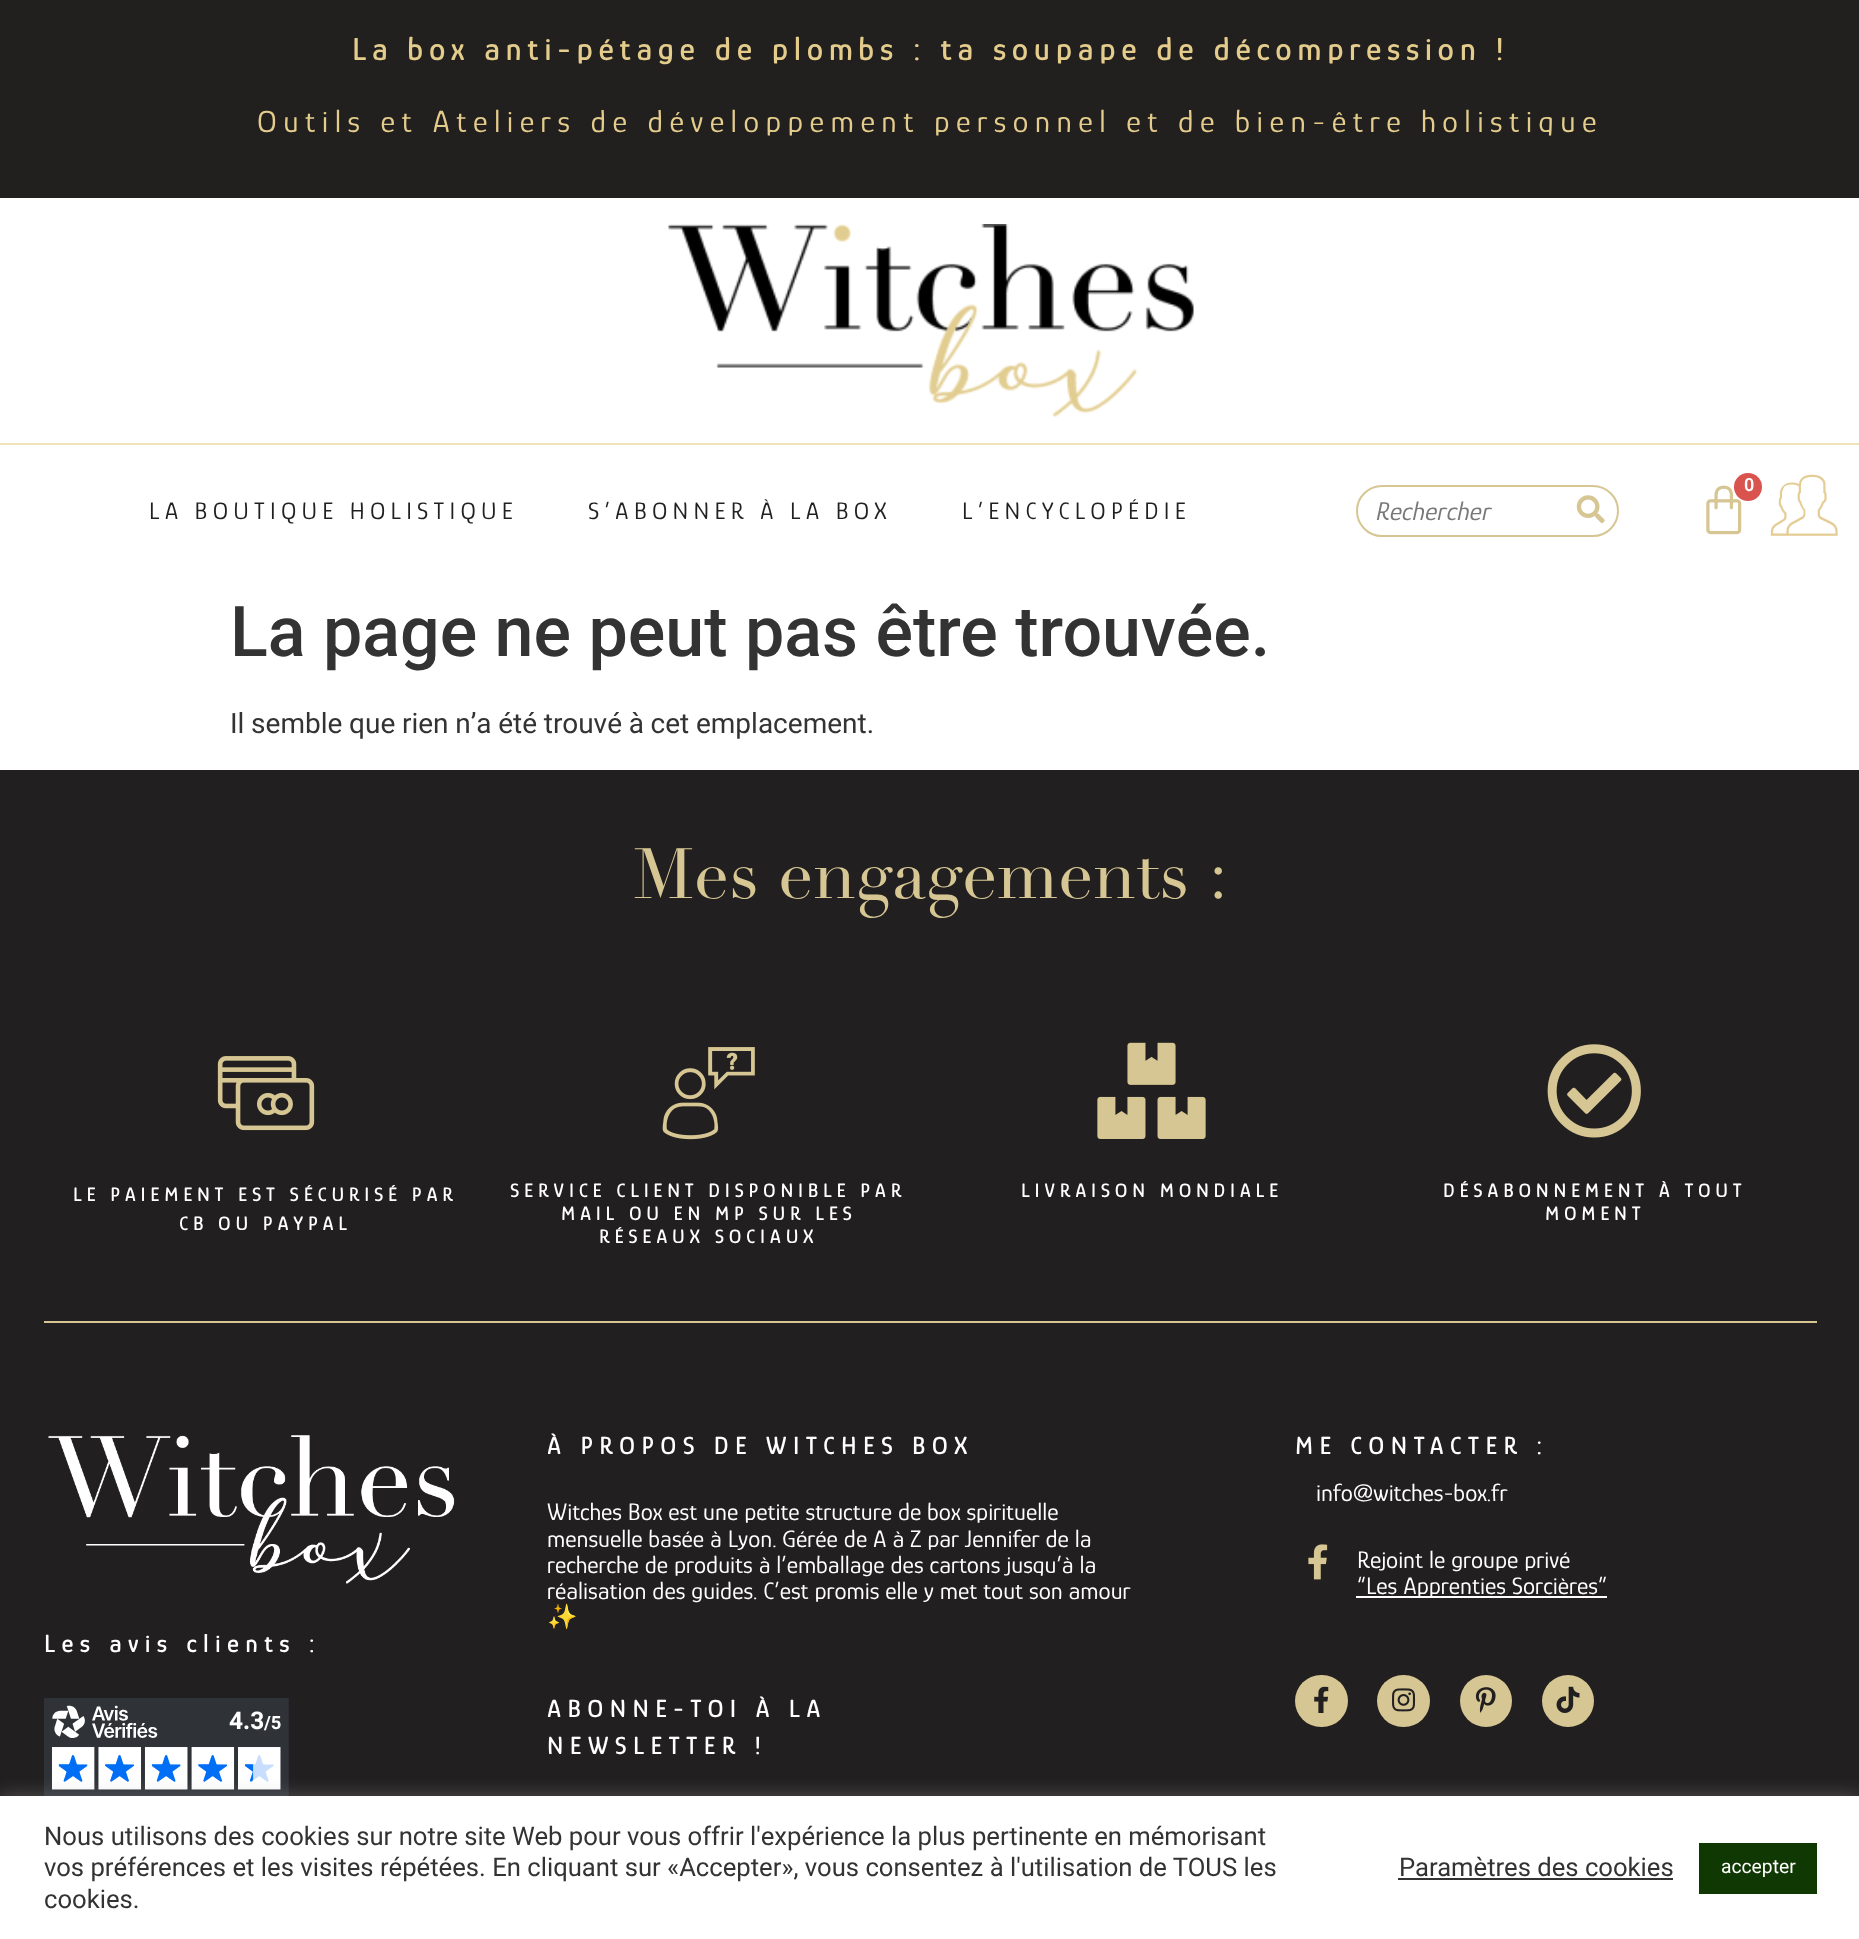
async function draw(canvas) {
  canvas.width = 1859
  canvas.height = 1939
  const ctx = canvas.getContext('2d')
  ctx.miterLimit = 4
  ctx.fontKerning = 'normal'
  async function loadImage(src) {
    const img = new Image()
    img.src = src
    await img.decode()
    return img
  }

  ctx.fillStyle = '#fff'
  ctx.fillRect(0, 0, 1859, 1939)
  ctx.fillStyle = '#22201f'
  ctx.fillRect(0, 0, 1859, 198)
  ctx.letterSpacing = '6.48px'
  ctx.font = 'bold 31.5px Glory'
  ctx.fillStyle = '#e4cc8c'
  ctx.fillText('La box anti-pétage de plombs : ta soupape de décompression !', 352, 60)
  ctx.font = '31.5px Glory'
  ctx.fillText('Outils et Ateliers de développement personnel et de bien-être holistique', 257, 132)
  ctx.drawImage(await loadImage('image0.png'), 668, 224, 526, 193)
  ctx.fillStyle = '#f0e3b8'
  ctx.fillRect(0, 443, 1859, 2)
  ctx.drawImage(await loadImage('image1.png'), 1706, 485, 36, 50)
  ctx.fillStyle = '#d9534f'
  ctx.beginPath()
  ctx.arc(1748, 487, 14, 0, 2 * Math.PI)
  ctx.fill()
  ctx.letterSpacing = '0px'
  ctx.font = '600 18px Roboto'
  ctx.fillStyle = '#fff'
  ctx.fillText('0', 1744, 491)
  ctx.drawImage(await loadImage('image2.png'), 1770, 474, 68, 62)
  ctx.letterSpacing = '5.25px'
  ctx.font = '24.5px Glory'
  ctx.fillStyle = '#221f20'
  ctx.fillText('LA BOUTIQUE HOLISTIQUE', 149, 519)
  ctx.fillText('S’ABONNER À LA BOX', 588, 519)
  ctx.fillText('L’ENCYCLOPÉDIE', 962, 519)
  ctx.beginPath()
  ctx.roundRect(1357, 486, 261, 50, 25)
  ctx.strokeStyle = '#d6c693'
  ctx.lineWidth = 2
  ctx.stroke()
  ctx.letterSpacing = '0px'
  ctx.font = 'italic 26.25px Glory'
  ctx.fillStyle = '#7a7979'
  ctx.fillText('Rechercher', 1376, 520)
  ctx.drawImage(await loadImage('image3.png'), 1576, 495, 29, 29)
  ctx.font = '500 70px Roboto'
  ctx.fillStyle = '#333'
  ctx.fillText('La page ne peut pas être trouvée.', 230, 656)
  ctx.wordSpacing = '-0.25px'
  ctx.font = '28px Roboto'
  ctx.fillText('Il semble que rien n’a été trouvé à cet emplacement.', 230, 733)
  ctx.fillStyle = '#221f20'
  ctx.fillRect(0, 770, 1859, 1026)
  ctx.wordSpacing = '0px'
  ctx.font = '70px Didot'
  ctx.fillStyle = '#d6c693'
  ctx.fillText('Mes engagements :', 633, 898)
  ctx.drawImage(await loadImage('image4.png'), 217, 1056, 98, 75)
  ctx.letterSpacing = '5.25px'
  ctx.font = 'bold 19.25px Glory'
  ctx.fillStyle = '#fff'
  ctx.fillText('LE PAIEMENT EST SÉCURISÉ PAR', 73, 1201)
  ctx.fillText('CB OU PAYPAL', 179, 1230)
  ctx.drawImage(await loadImage('image5.png'), 662, 1047, 93, 93)
  ctx.fillText('SERVICE CLIENT DISPONIBLE PAR', 510, 1197)
  ctx.fillText('MAIL OU EN MP SUR LES', 561, 1220)
  ctx.fillText('RÉSEAUX SOCIAUX', 599, 1243)
  ctx.drawImage(await loadImage('image6.png'), 1097, 1042, 109, 97)
  ctx.fillText('LIVRAISON MONDIALE', 1021, 1197)
  ctx.drawImage(await loadImage('image7.png'), 1547, 1044, 94, 94)
  ctx.fillText('DÉSABONNEMENT À TOUT', 1443, 1197)
  ctx.fillText('MOMENT', 1545, 1220)
  ctx.fillStyle = '#d6c693'
  ctx.fillRect(44, 1321, 1773, 2)
  ctx.letterSpacing = '7px'
  ctx.font = 'bold 24.5px Glory'
  ctx.fillStyle = '#fff'
  ctx.fillText('À PROPOS DE WITCHES BOX', 547, 1454)
  ctx.letterSpacing = '0px'
  ctx.font = '24.5px Glory'
  ctx.fillText('Witches Box est une petite structure de box spirituelle', 547, 1520)
  ctx.fillText('mensuelle basée à Lyon. Gérée de A à Z par Jennifer de la', 547, 1547)
  ctx.fillText('recherche de produits à l’emballage des cartons jusqu’à la', 547, 1573)
  ctx.fillText('réalisation des guides. C’est promis elle y met tout son amour', 547, 1599)
  ctx.font = '24.5px Noto Color Emoji'
  ctx.fillText('✨', 547, 1625)
  ctx.letterSpacing = '7px'
  ctx.font = 'bold 24.5px Glory'
  ctx.fillText('ABONNE-TOI À LA', 547, 1717)
  ctx.fillText('NEWSLETTER !', 547, 1754)
  ctx.fillText('ME CONTACTER :', 1295, 1454)
  ctx.letterSpacing = '0px'
  ctx.font = '24.5px Glory'
  ctx.fillText('info@witches-box.fr', 1316, 1501)
  ctx.drawImage(await loadImage('image8.png'), 1308, 1544, 20, 36)
  ctx.fillText('Rejoint le groupe privé', 1357, 1568)
  ctx.fillRect(1356, 1596, 251, 2)
  ctx.fillText('“Les Apprenties Sorcières”', 1357, 1594)
  ctx.fillStyle = '#d6c693'
  ctx.beginPath()
  ctx.roundRect(1295, 1675, 53, 52, 26)
  ctx.fill()
  ctx.drawImage(await loadImage('image9.png'), 1314, 1686, 15, 27)
  ctx.beginPath()
  ctx.roundRect(1377, 1675, 53, 52, 26)
  ctx.fill()
  ctx.drawImage(await loadImage('image10.png'), 1392, 1688, 24, 24)
  ctx.beginPath()
  ctx.arc(1486, 1701, 26, 0, 2 * Math.PI)
  ctx.fill()
  ctx.drawImage(await loadImage('image11.png'), 1475, 1687, 21, 26)
  ctx.beginPath()
  ctx.arc(1568, 1701, 26, 0, 2 * Math.PI)
  ctx.fill()
  ctx.drawImage(await loadImage('image12.png'), 1556, 1686, 24, 27)
  ctx.drawImage(await loadImage('image13.png'), 48, 1435, 407, 149)
  ctx.letterSpacing = '7px'
  ctx.font = 'bold 24.5px Glory'
  ctx.fillStyle = '#fff'
  ctx.fillText('Les avis clients :', 44, 1652)
  ctx.drawImage(await loadImage('image14.png'), 44, 1698, 245, 98)
  ctx.fillStyle = '#acabab4d'
  ctx.filter = 'blur(9px)'
  ctx.beginPath()
  ctx.rect(0, 1794, 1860, 143)
  ctx.fill()
  ctx.filter = 'none'
  ctx.fillStyle = '#fff'
  ctx.fillRect(0, 1796, 1859, 143)
  ctx.letterSpacing = '0px'
  ctx.font = '25.65px Roboto'
  ctx.fillStyle = '#333'
  ctx.fillText('Nous utilisons des cookies sur notre site Web pour vous offrir l\'expérience la plus pertinente en mémorisant', 44, 1845)
  ctx.fillText('vos préférences et les visites répétées. En cliquant sur «Accepter», vous consentez à l\'utilisation de TOUS les', 44, 1876)
  ctx.fillText('cookies.', 44, 1908)
  ctx.fillText('Paramètres des cookies', 1399, 1876)
  ctx.fillRect(1398, 1878, 275, 2)
  ctx.fillStyle = '#103803'
  ctx.fillRect(1699, 1843, 118, 51)
  ctx.font = '19.25px Roboto'
  ctx.fillStyle = '#fff'
  ctx.fillText('accepter', 1721, 1873)
}

draw(document.querySelector('canvas'))
